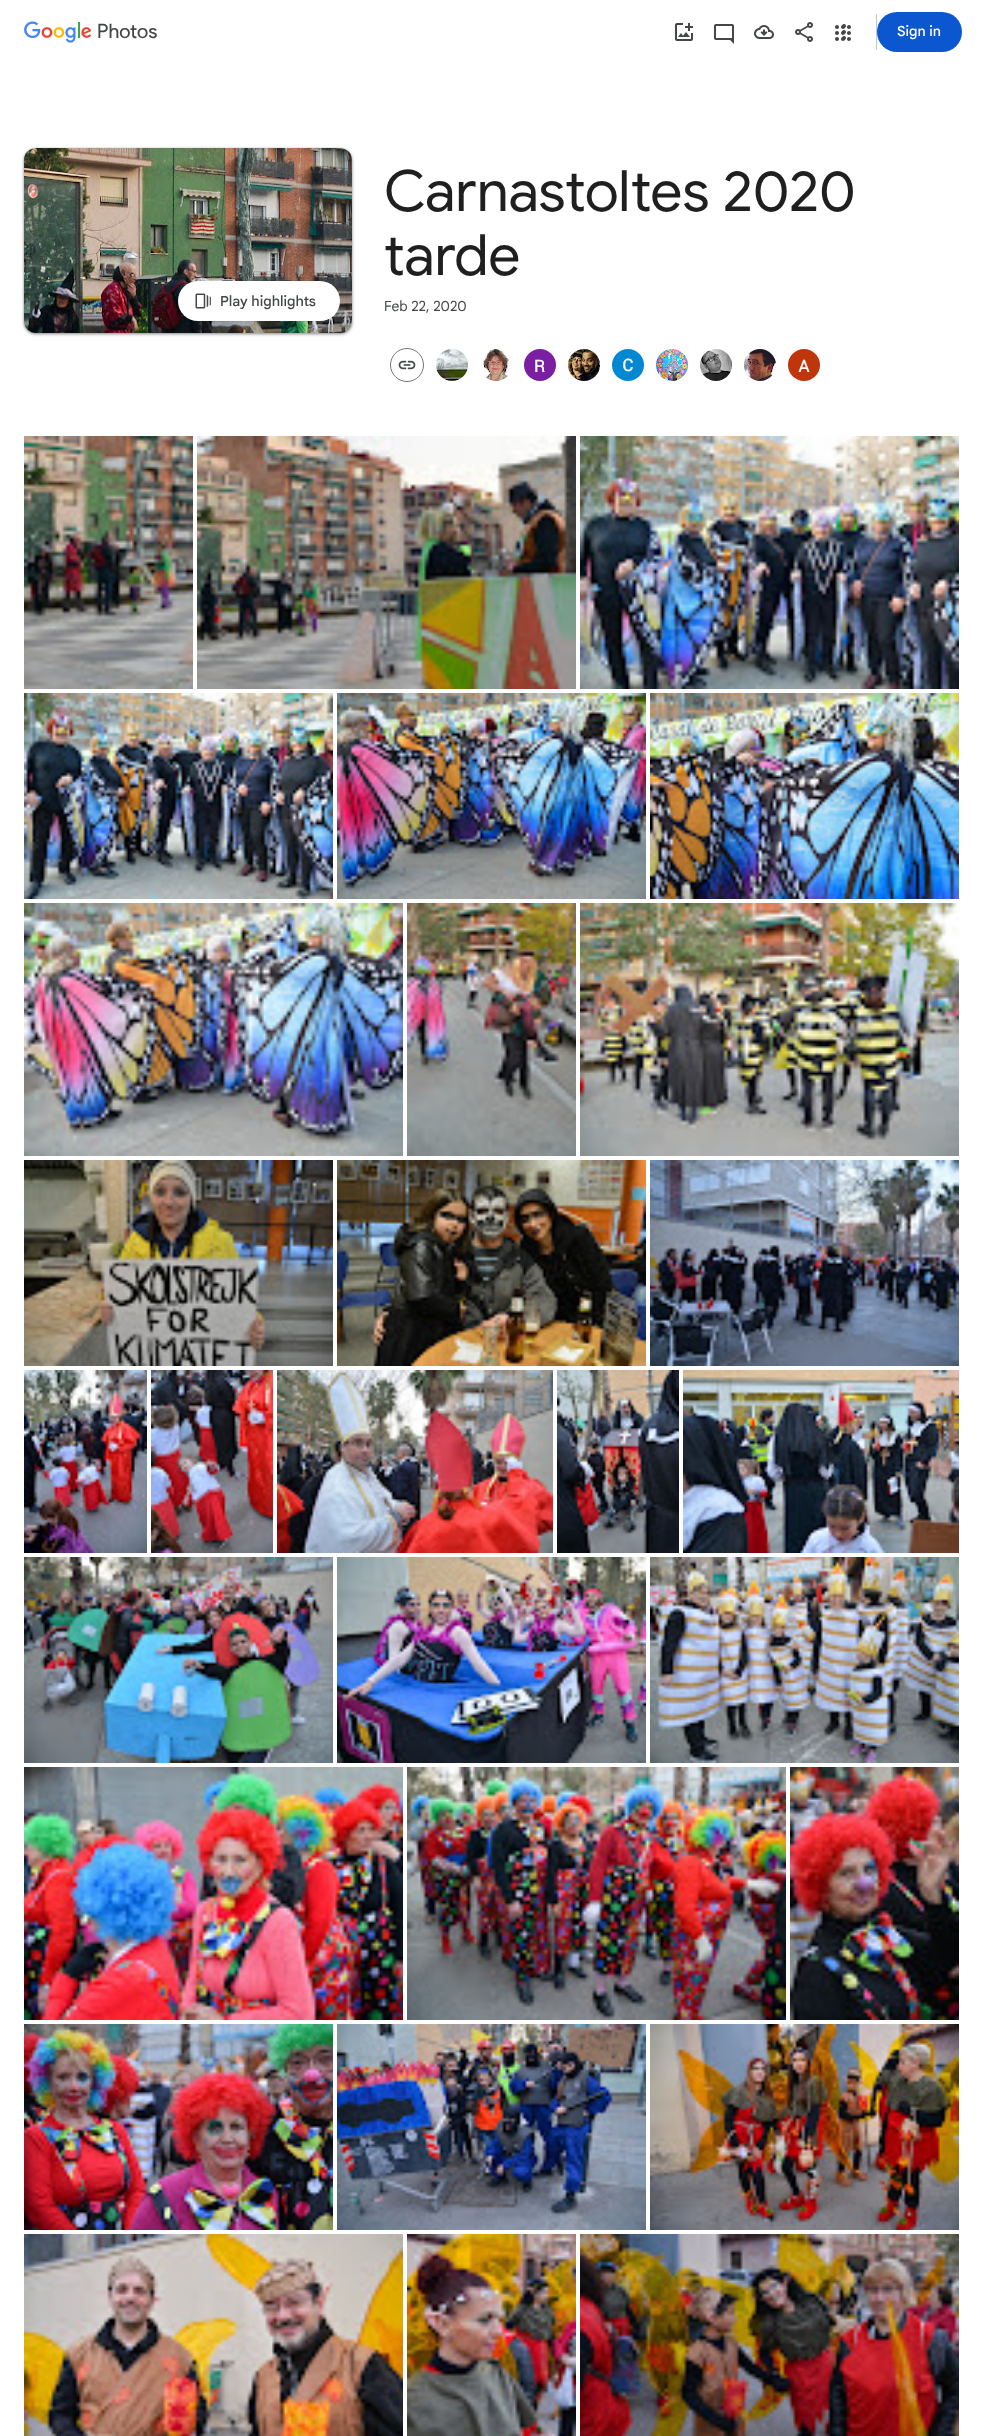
async function draw(canvas) {
  canvas.width = 998
  canvas.height = 2436
  const ctx = canvas.getContext('2d')
  ctx.miterLimit = 4
  ctx.fontKerning = 'normal'
  async function loadImage(src) {
    const img = new Image()
    img.src = src
    await img.decode()
    return img
  }

  ctx.fillStyle = '#fff'
  ctx.fillRect(0, 0, 998, 2436)
  ctx.drawImage(await loadImage('image0.png'), 24, 21, 68, 22)
  ctx.font = '20px Product Sans'
  ctx.fillStyle = '#444746'
  ctx.fillText('Photos', 97, 38)
  ctx.drawImage(await loadImage('image1.png'), 675, 23, 18, 18)
  ctx.drawImage(await loadImage('image2.png'), 714, 24, 20, 20)
  ctx.drawImage(await loadImage('image3.png'), 754, 25, 20, 14)
  ctx.drawImage(await loadImage('image4.png'), 795, 22, 18, 20)
  ctx.drawImage(await loadImage('image5.png'), 842, 24, 4, 16)
  ctx.fillStyle = '#c4c7c5'
  ctx.fillRect(876, 14, 1, 36)
  ctx.fillStyle = '#00000026'
  ctx.filter = 'blur(1.5px)'
  ctx.beginPath()
  ctx.roundRect(23, 148, 330, 187, 13)
  ctx.fill()
  ctx.filter = 'none'
  ctx.fillStyle = '#0000004d'
  ctx.filter = 'blur(1px)'
  ctx.beginPath()
  ctx.roundRect(24, 149, 328, 185, 12)
  ctx.fill()
  ctx.filter = 'none'
  ctx.drawImage(await loadImage('image6.png'), 24, 148, 328, 185)
  ctx.fillStyle = '#fff'
  ctx.beginPath()
  ctx.roundRect(178, 281, 162, 40, 20)
  ctx.fill()
  ctx.drawImage(await loadImage('image7.png'), 195, 293, 16, 16)
  ctx.font = '500 14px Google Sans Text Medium'
  ctx.fillStyle = '#444746'
  ctx.fillText('Play highlights', 220, 306)
  ctx.font = '57px Google Sans'
  ctx.fillStyle = '#1f1f1f'
  ctx.fillText('Carnastoltes 2020', 384, 211)
  ctx.fillText('tarde', 384, 275)
  ctx.font = '14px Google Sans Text'
  ctx.fillStyle = '#444746'
  ctx.fillText('Feb 22, 2020', 384, 311)
  ctx.beginPath()
  ctx.arc(407, 365, 16.5, 0, 2 * Math.PI)
  ctx.strokeStyle = '#747775'
  ctx.stroke()
  ctx.drawImage(await loadImage('image8.png'), 398, 360, 18, 10)
  ctx.drawImage(await loadImage('image9.png'), 436, 349, 32, 32)
  ctx.drawImage(await loadImage('image10.png'), 481, 349, 31, 32)
  ctx.drawImage(await loadImage('image11.png'), 524, 349, 32, 32)
  ctx.drawImage(await loadImage('image12.png'), 568, 349, 32, 32)
  ctx.drawImage(await loadImage('image13.png'), 612, 349, 32, 32)
  ctx.drawImage(await loadImage('image14.png'), 656, 349, 32, 32)
  ctx.drawImage(await loadImage('image15.png'), 700, 349, 32, 32)
  ctx.drawImage(await loadImage('image16.png'), 744, 349, 32, 32)
  ctx.drawImage(await loadImage('image17.png'), 788, 349, 32, 32)
  ctx.drawImage(await loadImage('image18.png'), 24, 436, 169, 253)
  ctx.drawImage(await loadImage('image19.png'), 197, 436, 379, 253)
  ctx.drawImage(await loadImage('image20.png'), 580, 436, 379, 253)
  ctx.drawImage(await loadImage('image21.png'), 24, 693, 309, 206)
  ctx.drawImage(await loadImage('image22.png'), 337, 693, 309, 206)
  ctx.drawImage(await loadImage('image23.png'), 650, 693, 309, 206)
  ctx.drawImage(await loadImage('image24.png'), 24, 903, 379, 253)
  ctx.drawImage(await loadImage('image25.png'), 407, 903, 169, 253)
  ctx.drawImage(await loadImage('image26.png'), 580, 903, 379, 253)
  ctx.drawImage(await loadImage('image27.png'), 24, 1160, 309, 206)
  ctx.drawImage(await loadImage('image28.png'), 337, 1160, 309, 206)
  ctx.drawImage(await loadImage('image29.png'), 650, 1160, 309, 206)
  ctx.drawImage(await loadImage('image30.png'), 24, 1370, 123, 183)
  ctx.drawImage(await loadImage('image31.png'), 151, 1370, 122, 183)
  ctx.drawImage(await loadImage('image32.png'), 277, 1370, 276, 183)
  ctx.drawImage(await loadImage('image33.png'), 557, 1370, 122, 183)
  ctx.drawImage(await loadImage('image34.png'), 683, 1370, 276, 183)
  ctx.drawImage(await loadImage('image35.png'), 24, 1557, 309, 206)
  ctx.drawImage(await loadImage('image36.png'), 337, 1557, 309, 206)
  ctx.drawImage(await loadImage('image37.png'), 650, 1557, 309, 206)
  ctx.drawImage(await loadImage('image38.png'), 24, 1767, 379, 253)
  ctx.drawImage(await loadImage('image39.png'), 407, 1767, 379, 253)
  ctx.drawImage(await loadImage('image40.png'), 790, 1767, 169, 253)
  ctx.drawImage(await loadImage('image41.png'), 24, 2024, 309, 206)
  ctx.drawImage(await loadImage('image42.png'), 337, 2024, 309, 206)
  ctx.drawImage(await loadImage('image43.png'), 650, 2024, 309, 206)
  ctx.drawImage(await loadImage('image44.png'), 24, 2234, 379, 202)
  ctx.drawImage(await loadImage('image45.png'), 407, 2234, 169, 202)
  ctx.drawImage(await loadImage('image46.png'), 580, 2234, 379, 202)
  ctx.drawImage(await loadImage('image47.png'), 835, 25, 16, 16)
  ctx.fillStyle = '#0b57d0'
  ctx.beginPath()
  ctx.roundRect(877, 12, 85, 40, 20)
  ctx.fill()
  ctx.font = '500 14px Google Sans Text Medium'
  ctx.fillStyle = '#fff'
  ctx.fillText('Sign in', 897, 36)
}

draw(document.querySelector('canvas'))
